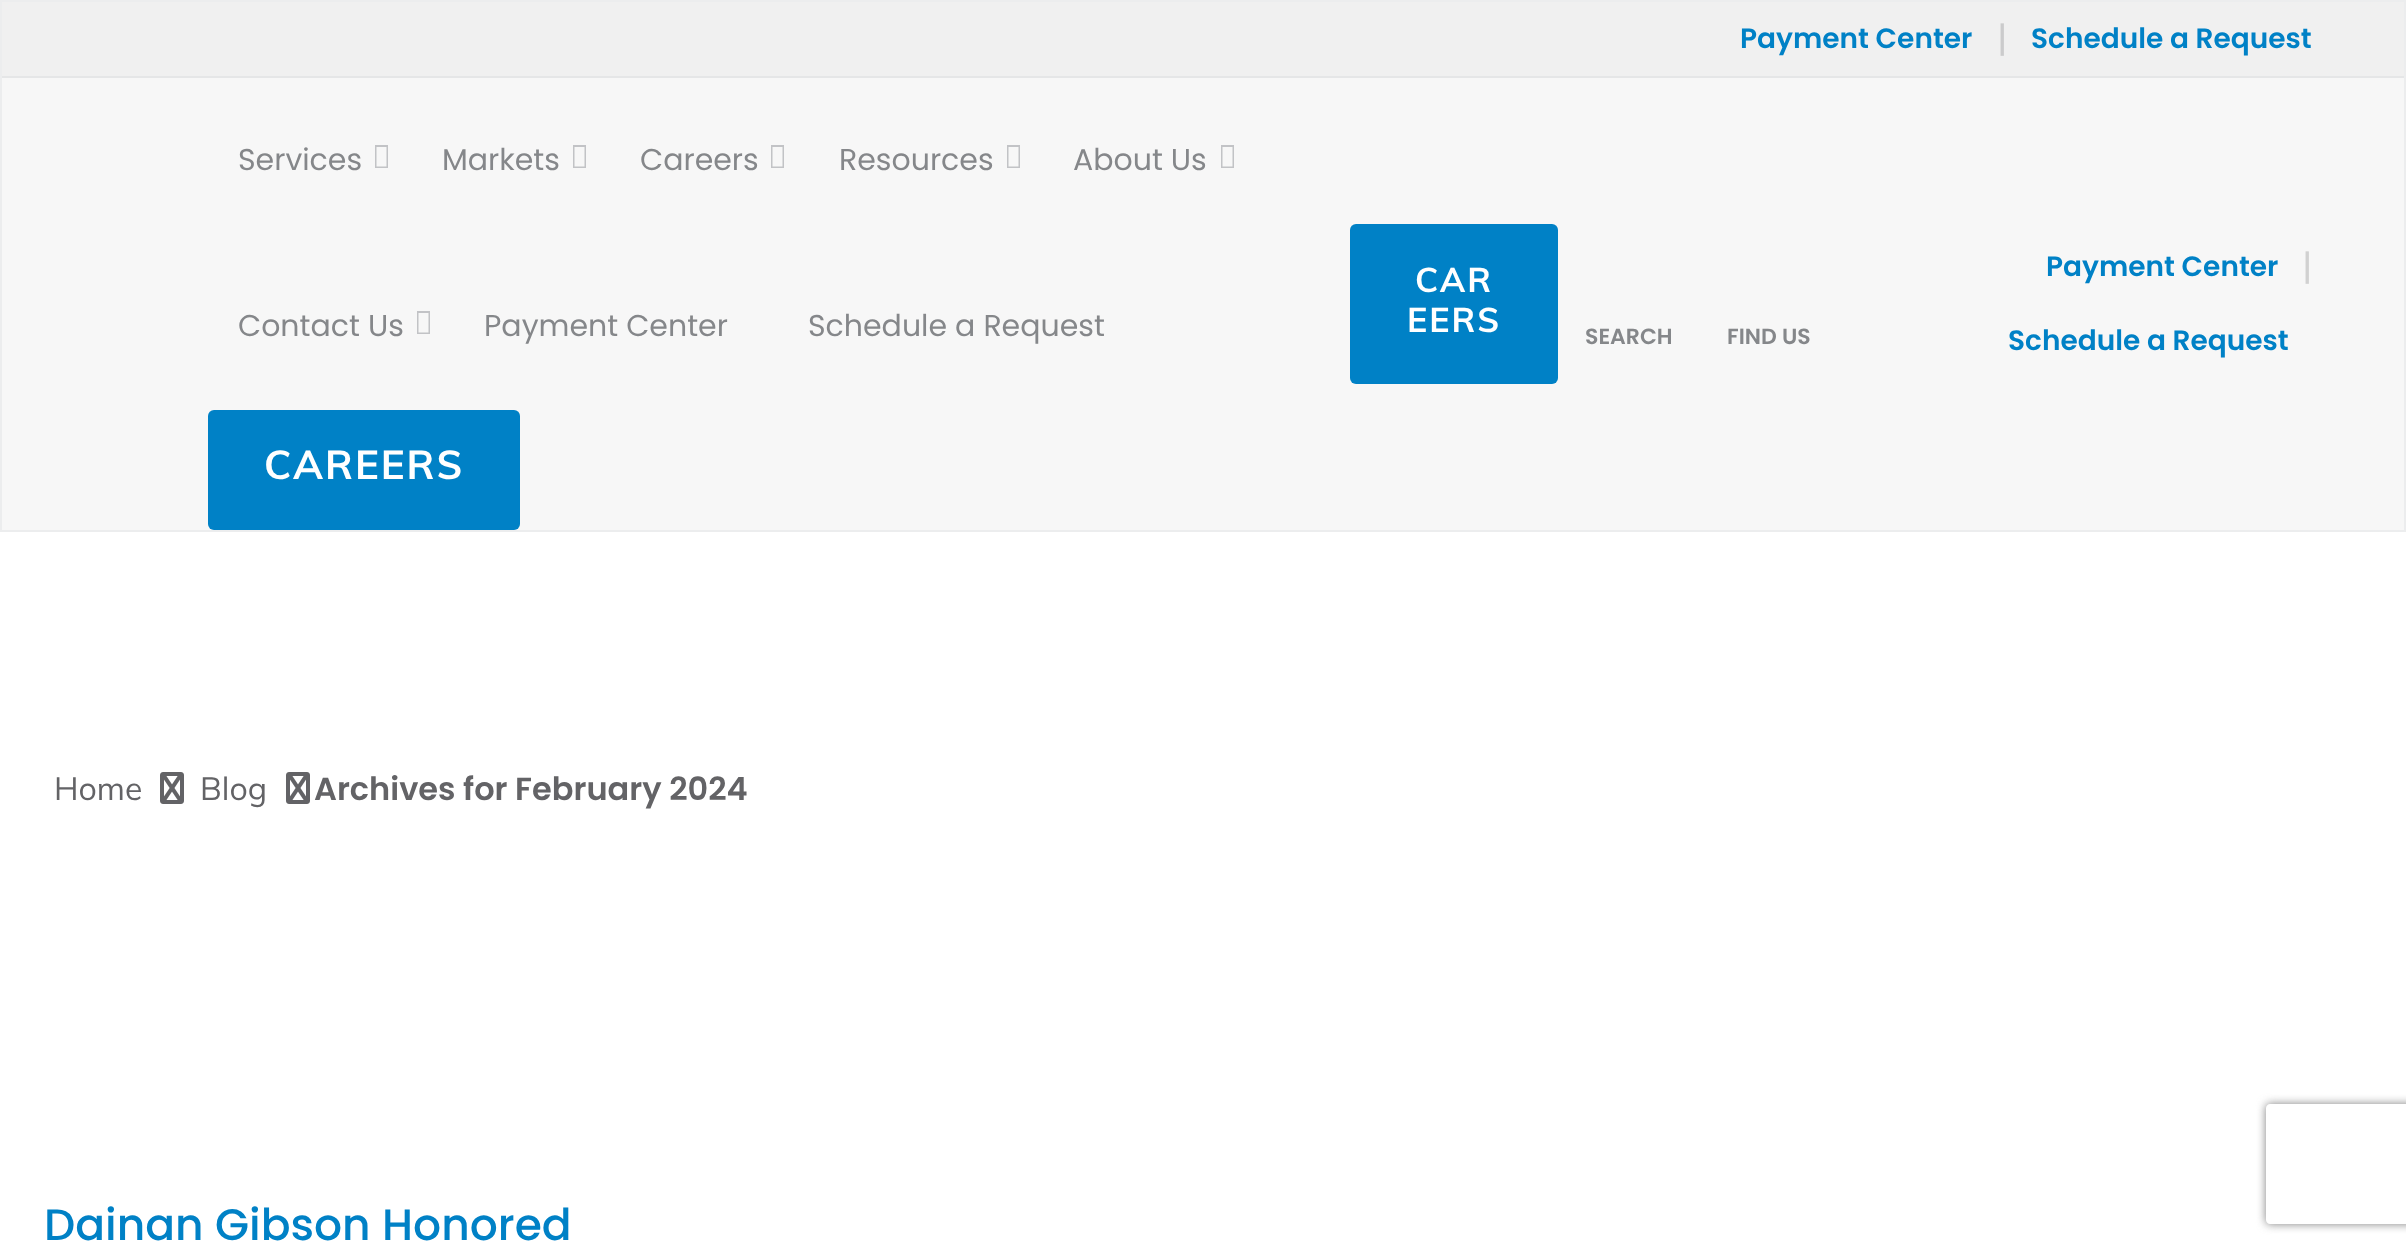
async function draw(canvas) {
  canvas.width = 2406
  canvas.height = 1251
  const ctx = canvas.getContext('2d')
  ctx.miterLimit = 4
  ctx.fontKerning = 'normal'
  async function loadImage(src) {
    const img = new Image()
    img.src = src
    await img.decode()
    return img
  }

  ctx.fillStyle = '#fff'
  ctx.fillRect(0, 0, 2406, 1251)
  ctx.fillStyle = '#f7f7f7'
  ctx.fillRect(2, 78, 2402, 452)
  ctx.strokeStyle = '#ecedee'
  ctx.lineWidth = 2
  ctx.strokeRect(1, 1, 2404, 530)
  ctx.fillStyle = '#f0f0f0'
  ctx.fillRect(2, 2, 2402, 74)
  ctx.fillStyle = '#e5e6e7'
  ctx.fillRect(2, 76, 2402, 2)
  ctx.font = '600 28px Poppins'
  ctx.fillStyle = '#0081c6'
  ctx.fillText('Payment Center', 1740, 48)
  ctx.font = '36px Poppins'
  ctx.fillStyle = '#cbcbcc'
  ctx.fillText('|', 1997, 52)
  ctx.font = '600 28px Poppins'
  ctx.fillStyle = '#0081c6'
  ctx.fillText('Schedule a Request', 2031, 48)
  ctx.font = '30px Poppins'
  ctx.fillStyle = '#85878a'
  ctx.fillText('Services', 238, 170)
  ctx.fillStyle = '#c2c3c6'
  ctx.beginPath()
  ctx.moveTo(375, 168)
  ctx.lineTo(375, 145)
  ctx.lineTo(388, 145)
  ctx.lineTo(388, 168)
  ctx.closePath()
  ctx.moveTo(376.5, 166.5)
  ctx.lineTo(386.5, 166.5)
  ctx.lineTo(386.5, 147)
  ctx.lineTo(376.5, 147)
  ctx.closePath()
  ctx.fill()
  ctx.fillStyle = '#85878a'
  ctx.fillText('Markets', 442, 170)
  ctx.fillStyle = '#c2c3c6'
  ctx.beginPath()
  ctx.moveTo(573, 168)
  ctx.lineTo(573, 145)
  ctx.lineTo(586, 145)
  ctx.lineTo(586, 168)
  ctx.closePath()
  ctx.moveTo(574.5, 166.5)
  ctx.lineTo(584.5, 166.5)
  ctx.lineTo(584.5, 147)
  ctx.lineTo(574.5, 147)
  ctx.closePath()
  ctx.fill()
  ctx.fillStyle = '#85878a'
  ctx.fillText('Careers', 640, 170)
  ctx.fillStyle = '#c2c3c6'
  ctx.beginPath()
  ctx.moveTo(771, 168)
  ctx.lineTo(771, 145)
  ctx.lineTo(784, 145)
  ctx.lineTo(784, 168)
  ctx.closePath()
  ctx.moveTo(772.5, 166.5)
  ctx.lineTo(782.5, 166.5)
  ctx.lineTo(782.5, 147)
  ctx.lineTo(772.5, 147)
  ctx.closePath()
  ctx.fill()
  ctx.fillStyle = '#85878a'
  ctx.fillText('Resources', 839, 170)
  ctx.fillStyle = '#c2c3c6'
  ctx.beginPath()
  ctx.moveTo(1007, 168)
  ctx.lineTo(1007, 145)
  ctx.lineTo(1020, 145)
  ctx.lineTo(1020, 168)
  ctx.closePath()
  ctx.moveTo(1008.5, 166.5)
  ctx.lineTo(1018.5, 166.5)
  ctx.lineTo(1018.5, 147)
  ctx.lineTo(1008.5, 147)
  ctx.closePath()
  ctx.fill()
  ctx.fillStyle = '#85878a'
  ctx.fillText('About Us', 1073, 170)
  ctx.fillStyle = '#c2c3c6'
  ctx.beginPath()
  ctx.moveTo(1221, 168)
  ctx.lineTo(1221, 145)
  ctx.lineTo(1234, 145)
  ctx.lineTo(1234, 168)
  ctx.closePath()
  ctx.moveTo(1222.5, 166.5)
  ctx.lineTo(1232.5, 166.5)
  ctx.lineTo(1232.5, 147)
  ctx.lineTo(1222.5, 147)
  ctx.closePath()
  ctx.fill()
  ctx.fillStyle = '#85878a'
  ctx.fillText('Contact Us', 238, 336)
  ctx.fillStyle = '#c2c3c6'
  ctx.beginPath()
  ctx.moveTo(417, 334)
  ctx.lineTo(417, 311)
  ctx.lineTo(430, 311)
  ctx.lineTo(430, 334)
  ctx.closePath()
  ctx.moveTo(418.5, 332.5)
  ctx.lineTo(428.5, 332.5)
  ctx.lineTo(428.5, 313)
  ctx.lineTo(418.5, 313)
  ctx.closePath()
  ctx.fill()
  ctx.fillStyle = '#85878a'
  ctx.fillText('Payment Center', 484, 336)
  ctx.fillText('Schedule a Request', 808, 336)
  ctx.fillStyle = '#0081c6'
  ctx.beginPath()
  ctx.roundRect(208, 410, 312, 120, 6)
  ctx.fill()
  ctx.letterSpacing = '2px'
  ctx.font = 'bold 40px Muli'
  ctx.fillStyle = '#fff'
  ctx.fillText('CAREERS', 264, 479)
  ctx.fillStyle = '#0081c6'
  ctx.beginPath()
  ctx.roundRect(1350, 224, 208, 160, 6)
  ctx.fill()
  ctx.font = 'bold 34px Muli'
  ctx.fillStyle = '#fff'
  ctx.fillText('CAR', 1415, 292)
  ctx.fillText('EERS', 1407, 332)
  ctx.letterSpacing = '0px'
  ctx.font = '600 22px Poppins'
  ctx.fillStyle = '#85878a'
  ctx.fillText('SEARCH', 1585, 344)
  ctx.fillText('FIND US', 1727, 344)
  ctx.font = '600 28px Poppins'
  ctx.fillStyle = '#0081c6'
  ctx.fillText('Payment Center', 2046, 276)
  ctx.font = '36px Poppins'
  ctx.fillStyle = '#d1d1d1'
  ctx.fillText('|', 2302, 280)
  ctx.font = '600 28px Poppins'
  ctx.fillStyle = '#0081c6'
  ctx.fillText('Schedule a Request', 2008, 350)
  ctx.font = '32px Muli'
  ctx.fillStyle = '#636366'
  ctx.fillText('Home', 54, 800)
  ctx.drawImage(await loadImage('image0.png'), 160, 772, 24, 32)
  ctx.fillText('Blog', 200, 800)
  ctx.drawImage(await loadImage('image0.png'), 286, 772, 24, 32)
  ctx.font = '600 32px Poppins'
  ctx.fillText('Archives for February 2024', 314, 800)
  ctx.font = '500 44px Poppins'
  ctx.fillStyle = '#0081c6'
  ctx.fillText('Dainan Gibson Honored', 44, 1240)
  ctx.save()
  ctx.beginPath()
  ctx.moveTo(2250, 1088)
  ctx.lineTo(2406, 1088)
  ctx.lineTo(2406, 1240)
  ctx.lineTo(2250, 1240)
  ctx.closePath()
  ctx.moveTo(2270, 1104)
  ctx.lineTo(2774, 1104)
  ctx.bezierCurveTo(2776, 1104, 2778, 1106, 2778, 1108)
  ctx.lineTo(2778, 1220)
  ctx.bezierCurveTo(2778, 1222, 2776, 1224, 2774, 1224)
  ctx.lineTo(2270, 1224)
  ctx.bezierCurveTo(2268, 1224, 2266, 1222, 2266, 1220)
  ctx.lineTo(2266, 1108)
  ctx.bezierCurveTo(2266, 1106, 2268, 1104, 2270, 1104)
  ctx.closePath()
  ctx.clip('evenodd')
  ctx.fillStyle = '#808080'
  ctx.filter = 'blur(5px)'
  ctx.beginPath()
  ctx.roundRect(2266, 1104, 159, 120, 4)
  ctx.fill()
  ctx.filter = 'none'
  ctx.restore()
}

draw(document.querySelector('canvas'))
